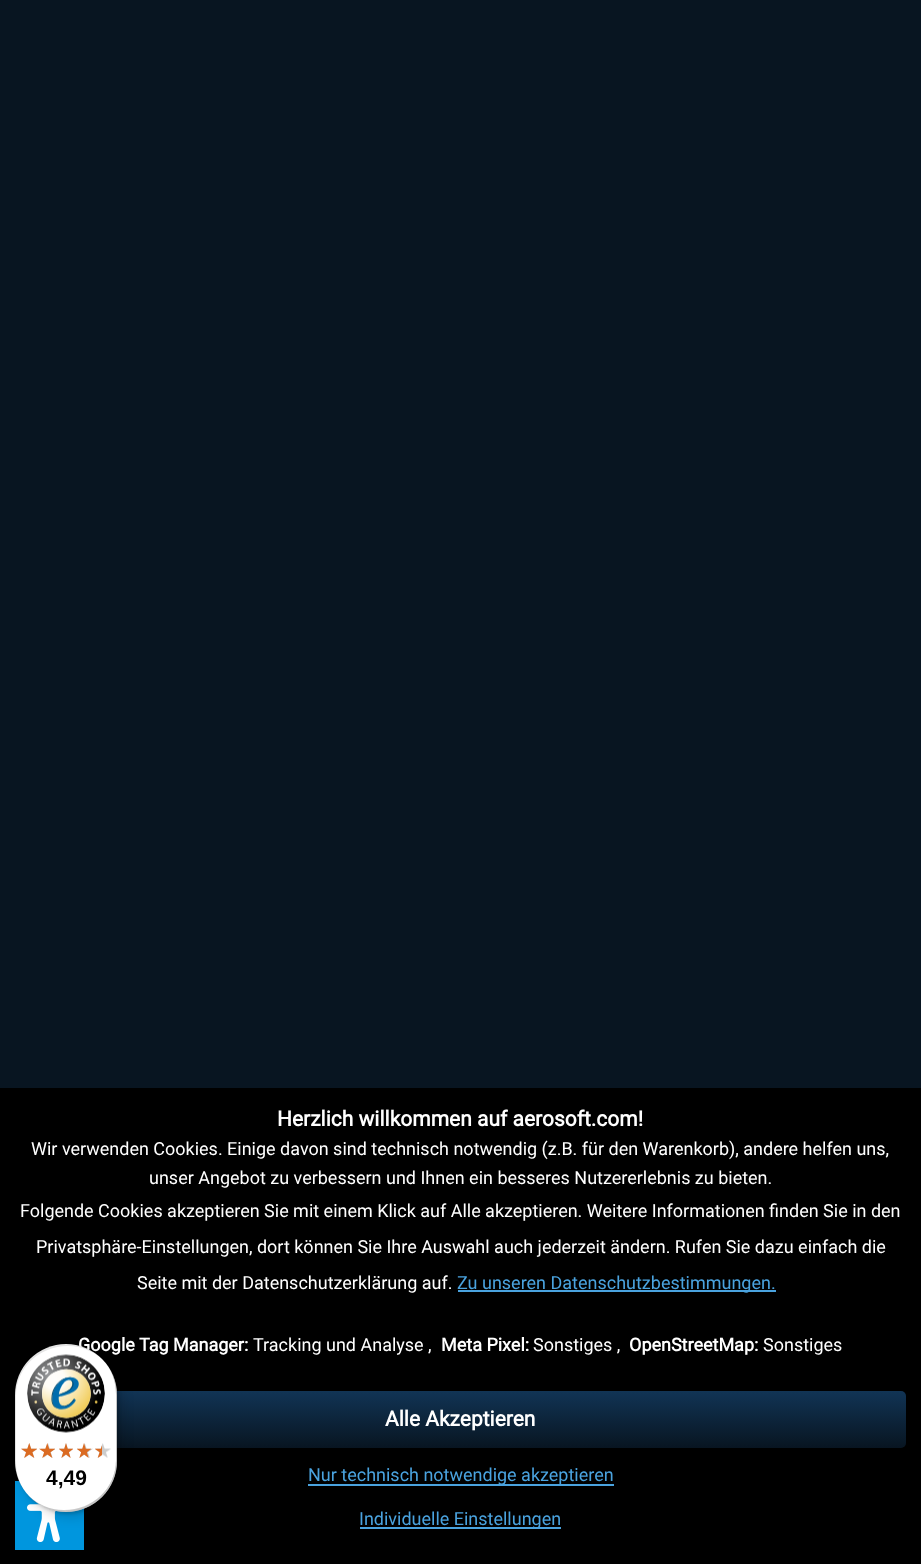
async function draw(canvas) {
  canvas.width = 921
  canvas.height = 1564
  const ctx = canvas.getContext('2d')
  ctx.miterLimit = 4
  ctx.fontKerning = 'normal'
  async function loadImage(src) {
    const img = new Image()
    img.src = src
    await img.decode()
    return img
  }
  let gradient

  ctx.fillStyle = '#081521'
  ctx.fillRect(0, 0, 921, 1564)
  ctx.fillStyle = '#000'
  ctx.fillRect(0, 1088, 921, 476)
  ctx.font = 'bold 21px Roboto'
  ctx.fillStyle = '#fff'
  ctx.fillText('Herzlich willkommen auf aerosoft.com!', 277, 1126)
  ctx.font = '18px Roboto'
  ctx.fillText('Wir verwenden Cookies. Einige davon sind technisch notwendig (z.B. für den Warenkorb), andere helfen uns,', 31, 1155)
  ctx.fillText('unser Angebot zu verbessern und Ihnen ein besseres Nutzererlebnis zu bieten.', 149, 1184)
  ctx.fillText('Folgende Cookies akzeptieren Sie mit einem Klick auf Alle akzeptieren. Weitere Informationen finden Sie in den', 20, 1217)
  ctx.fillText('Privatsphäre-Einstellungen, dort können Sie Ihre Auswahl auch jederzeit ändern. Rufen Sie dazu einfach die', 36, 1253)
  ctx.fillText('Seite mit der Datenschutzerklärung auf.', 137, 1289)
  ctx.fillStyle = '#4aa3df'
  ctx.fillRect(458, 1290, 318, 2)
  ctx.fillText('Zu unseren Datenschutzbestimmungen.', 457, 1289)
  ctx.font = 'bold 18px Roboto'
  ctx.fillStyle = '#fff'
  ctx.fillText('Google Tag Manager:', 78, 1351)
  ctx.font = '18px Roboto'
  ctx.fillText('Tracking und Analyse ,', 253, 1351)
  ctx.font = 'bold 18px Roboto'
  ctx.fillText('Meta Pixel:', 441, 1351)
  ctx.font = '18px Roboto'
  ctx.fillText('Sonstiges ,', 533, 1351)
  ctx.font = 'bold 18px Roboto'
  ctx.fillText('OpenStreetMap:', 629, 1351)
  ctx.font = '18px Roboto'
  ctx.fillText('Sonstiges', 763, 1351)
  gradient = ctx.createLinearGradient(461, 1391, 461, 1448)
  gradient.addColorStop(0, '#113455')
  gradient.addColorStop(1, '#081521')
  ctx.fillStyle = gradient
  ctx.beginPath()
  ctx.roundRect(15, 1391, 891, 57, 5)
  ctx.fill()
  ctx.font = 'bold 21px Roboto'
  ctx.fillStyle = '#fff'
  ctx.fillText('Alle Akzeptieren', 385, 1426)
  ctx.fillStyle = '#4aa3df'
  ctx.fillRect(308, 1484, 306, 2)
  ctx.font = '18px Roboto'
  ctx.fillText('Nur technisch notwendige akzeptieren', 308, 1481)
  ctx.fillRect(360, 1527, 201, 2)
  ctx.fillText('Individuelle Einstellungen', 359, 1525)
  ctx.fillStyle = '#0096de'
  ctx.fillRect(15, 1481, 69, 69)
  ctx.drawImage(await loadImage('image11.png'), 27, 1504, 33, 38)
  ctx.fillStyle = '#00000026'
  ctx.filter = 'blur(6px)'
  ctx.beginPath()
  ctx.roundRect(20, 1349, 102, 168, 51)
  ctx.fill()
  ctx.filter = 'none'
  ctx.filter = 'blur(1.5px)'
  ctx.beginPath()
  ctx.roundRect(17, 1346, 102, 168, 51)
  ctx.fill()
  ctx.filter = 'none'
  ctx.fillStyle = '#fff'
  ctx.beginPath()
  ctx.roundRect(15, 1344, 102, 168, 51)
  ctx.fill()
  ctx.fillStyle = '#0000001a'
  ctx.beginPath()
  ctx.moveTo(68, 1346)
  ctx.bezierCurveTo(82, 1346, 95, 1352, 104, 1361)
  ctx.bezierCurveTo(95, 1351, 81, 1344, 66, 1344)
  ctx.bezierCurveTo(38, 1344, 15, 1367, 15, 1395)
  ctx.lineTo(15, 1461)
  ctx.bezierCurveTo(15, 1472, 18, 1482, 24, 1490)
  ctx.bezierCurveTo(19, 1482, 16, 1472, 16, 1462)
  ctx.lineTo(16, 1396)
  ctx.bezierCurveTo(16, 1368, 39, 1346, 68, 1346)
  ctx.closePath()
  ctx.fill()
  ctx.fillStyle = '#00000033'
  ctx.beginPath()
  ctx.moveTo(28, 1495)
  ctx.bezierCurveTo(37, 1505, 51, 1512, 66, 1512)
  ctx.bezierCurveTo(94, 1512, 117, 1489, 117, 1461)
  ctx.lineTo(117, 1395)
  ctx.bezierCurveTo(117, 1384, 114, 1374, 108, 1366)
  ctx.bezierCurveTo(113, 1374, 116, 1384, 116, 1394)
  ctx.lineTo(116, 1460)
  ctx.bezierCurveTo(116, 1488, 93, 1510, 64, 1510)
  ctx.bezierCurveTo(50, 1510, 37, 1504, 28, 1495)
  ctx.closePath()
  ctx.fill()
  ctx.fillStyle = '#32323233'
  ctx.beginPath()
  ctx.moveTo(27, 1494)
  ctx.bezierCurveTo(37, 1505, 51, 1512, 66, 1512)
  ctx.bezierCurveTo(94, 1512, 117, 1489, 117, 1461)
  ctx.lineTo(117, 1395)
  ctx.bezierCurveTo(117, 1380, 110, 1366, 99, 1356)
  ctx.bezierCurveTo(110, 1366, 116, 1379, 116, 1394)
  ctx.lineTo(116, 1460)
  ctx.bezierCurveTo(116, 1488, 93, 1511, 65, 1511)
  ctx.bezierCurveTo(50, 1511, 37, 1505, 27, 1494)
  ctx.closePath()
  ctx.fill()
  ctx.fillStyle = '#ffffff4d'
  ctx.beginPath()
  ctx.moveTo(27, 1494)
  ctx.bezierCurveTo(37, 1505, 51, 1512, 66, 1512)
  ctx.bezierCurveTo(94, 1512, 117, 1489, 117, 1461)
  ctx.lineTo(117, 1395)
  ctx.bezierCurveTo(117, 1380, 110, 1366, 99, 1356)
  ctx.bezierCurveTo(110, 1366, 116, 1379, 116, 1394)
  ctx.lineTo(116, 1460)
  ctx.bezierCurveTo(116, 1488, 93, 1511, 65, 1511)
  ctx.bezierCurveTo(50, 1511, 37, 1505, 27, 1494)
  ctx.closePath()
  ctx.fill()
  ctx.drawImage(await loadImage('image0.png'), 27, 1354, 78, 79)
  ctx.drawImage(await loadImage('image1.png'), 21, 1443, 16, 15)
  ctx.drawImage(await loadImage('image2.png'), 41, 1443, 14, 15)
  ctx.drawImage(await loadImage('image3.png'), 59, 1443, 14, 15)
  ctx.drawImage(await loadImage('image4.png'), 77, 1443, 16, 15)
  ctx.drawImage(await loadImage('image5.png'), 95, 1443, 16, 15)
  ctx.drawImage(await loadImage('image6.png'), 21, 1443, 16, 15)
  ctx.drawImage(await loadImage('image7.png'), 39, 1443, 16, 15)
  ctx.drawImage(await loadImage('image8.png'), 59, 1443, 14, 15)
  ctx.drawImage(await loadImage('image9.png'), 77, 1443, 14, 15)
  ctx.drawImage(await loadImage('image10.png'), 95, 1445, 7, 13)
  ctx.font = 'bold 21px Liberation Sans'
  ctx.fillStyle = '#000'
  ctx.fillText('4,49', 46, 1485)
}

draw(document.querySelector('canvas'))
